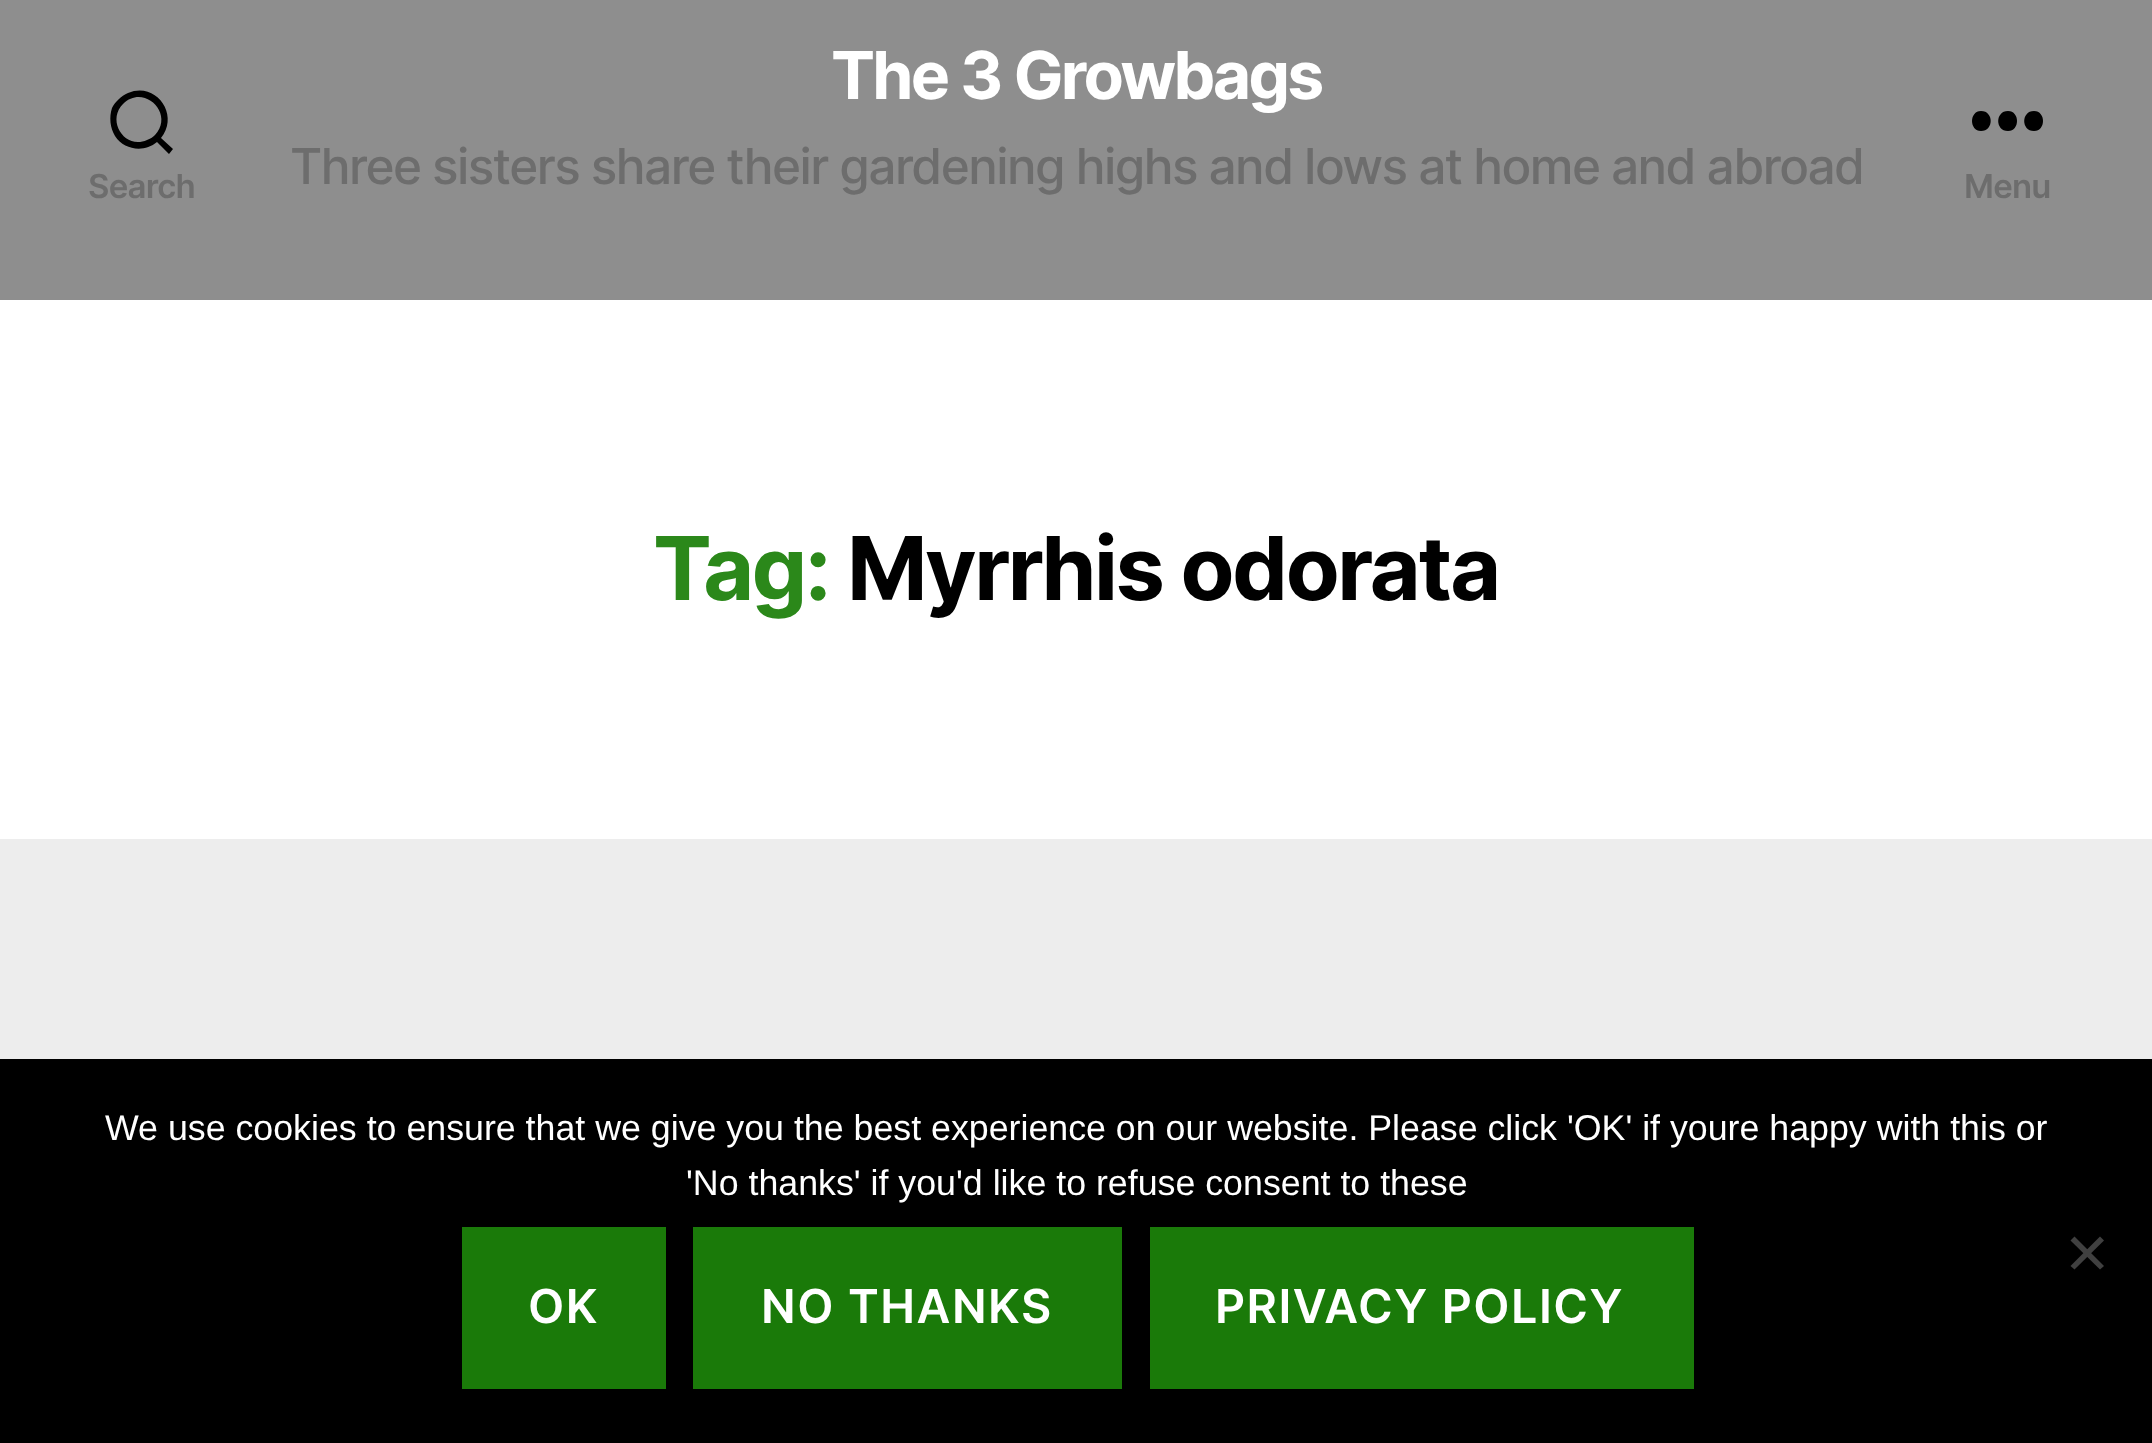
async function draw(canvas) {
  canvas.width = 2152
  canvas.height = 1443
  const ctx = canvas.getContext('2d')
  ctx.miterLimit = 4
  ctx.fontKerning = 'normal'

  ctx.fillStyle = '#ededed'
  ctx.fillRect(0, 0, 2152, 1443)
  ctx.fillStyle = '#8e8e8e'
  ctx.fillRect(0, 0, 2152, 300)
  ctx.fillStyle = '#000'
  ctx.beginPath()
  ctx.moveTo(161, 138)
  ctx.lineTo(173, 149)
  ctx.lineTo(169, 154)
  ctx.lineTo(157, 142)
  ctx.bezierCurveTo(144, 153, 124, 150, 115, 136)
  ctx.bezierCurveTo(110, 128, 109, 117, 112, 108)
  ctx.bezierCurveTo(115, 102, 121, 96, 128, 93)
  ctx.bezierCurveTo(156, 81, 180, 115, 161, 138)
  ctx.closePath()
  ctx.moveTo(155, 135)
  ctx.bezierCurveTo(175, 114, 144, 83, 123, 104)
  ctx.bezierCurveTo(106, 121, 125, 150, 147, 140)
  ctx.bezierCurveTo(150, 139, 153, 137, 155, 135)
  ctx.closePath()
  ctx.fill()
  ctx.letterSpacing = '-0.75px'
  ctx.font = '600 33px Inter'
  ctx.fillStyle = '#6d6d6d'
  ctx.fillText('Search', 88, 198)
  ctx.letterSpacing = '-2.75px'
  ctx.font = 'bold 66px Inter'
  ctx.fillStyle = '#fff'
  ctx.fillText('The 3 Growbags', 831, 99)
  ctx.letterSpacing = '-1.55px'
  ctx.font = '500 49.5px Inter'
  ctx.fillStyle = '#6d6d6d'
  ctx.fillText('Three sisters share their gardening highs and lows at home and abroad', 290, 184)
  ctx.fillStyle = '#000'
  ctx.beginPath()
  ctx.moveTo(1981, 131)
  ctx.bezierCurveTo(1969, 131, 1969, 111, 1981, 111)
  ctx.bezierCurveTo(1994, 111, 1994, 131, 1981, 131)
  ctx.closePath()
  ctx.moveTo(2008, 131)
  ctx.bezierCurveTo(1995, 131, 1995, 111, 2008, 111)
  ctx.bezierCurveTo(2020, 111, 2020, 131, 2008, 131)
  ctx.closePath()
  ctx.moveTo(2034, 131)
  ctx.bezierCurveTo(2021, 131, 2021, 111, 2034, 111)
  ctx.bezierCurveTo(2046, 111, 2046, 131, 2034, 131)
  ctx.closePath()
  ctx.fill('evenodd')
  ctx.letterSpacing = '-0.75px'
  ctx.font = '600 33px Inter'
  ctx.fillStyle = '#6d6d6d'
  ctx.fillText('Menu', 1964, 198)
  ctx.fillStyle = '#fff'
  ctx.fillRect(0, 300, 2152, 539)
  ctx.letterSpacing = '-2.4px'
  ctx.font = 'bold 88px Inter'
  ctx.fillStyle = '#2b881a'
  ctx.fillText('Tag:', 653, 600)
  ctx.fillStyle = '#000'
  ctx.fillText('Myrrhis odorata', 847, 600)
  ctx.fillRect(0, 1059, 2152, 384)
  ctx.letterSpacing = '0px'
  ctx.font = '35.75px Liberation Sans'
  ctx.fillStyle = '#fff'
  ctx.fillText('We use cookies to ensure that we give you the best experience on our website. Please click \'OK\' if youre happy with this or', 105, 1140)
  ctx.fillText('\'No thanks\' if you\'d like to refuse consent to these', 686, 1195)
  ctx.fillStyle = '#404040'
  ctx.beginPath()
  ctx.moveTo(2100, 1236.5)
  ctx.lineTo(2104, 1240.5)
  ctx.lineTo(2074.5, 1269.5)
  ctx.lineTo(2070.5, 1266)
  ctx.closePath()
  ctx.fill()
  ctx.beginPath()
  ctx.moveTo(2070.5, 1240.5)
  ctx.lineTo(2074.5, 1236.5)
  ctx.lineTo(2104, 1266)
  ctx.lineTo(2100, 1269.5)
  ctx.closePath()
  ctx.fill()
  ctx.fillStyle = '#1a7a09'
  ctx.fillRect(462, 1227, 204, 162)
  ctx.letterSpacing = '1.5px'
  ctx.font = '600 46.75px Inter'
  ctx.fillStyle = '#fff'
  ctx.fillText('OK', 528, 1323)
  ctx.fillStyle = '#1a7a09'
  ctx.fillRect(693, 1227, 429, 162)
  ctx.fillStyle = '#fff'
  ctx.fillText('NO THANKS', 761, 1323)
  ctx.fillStyle = '#1a7a09'
  ctx.fillRect(1150, 1227, 544, 162)
  ctx.fillStyle = '#fff'
  ctx.fillText('PRIVACY POLICY', 1215, 1323)
}

draw(document.querySelector('canvas'))
